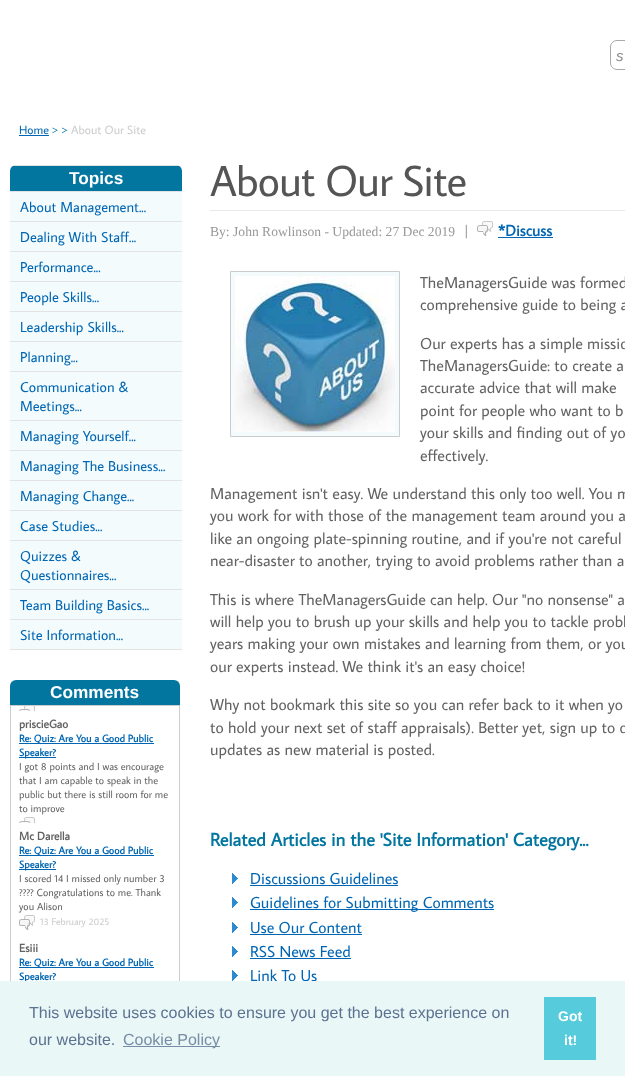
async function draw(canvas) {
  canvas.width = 625
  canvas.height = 1076
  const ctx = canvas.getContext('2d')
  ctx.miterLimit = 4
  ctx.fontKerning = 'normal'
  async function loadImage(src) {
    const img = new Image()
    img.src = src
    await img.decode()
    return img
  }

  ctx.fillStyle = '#fff'
  ctx.fillRect(0, 0, 625, 1076)
  ctx.beginPath()
  ctx.roundRect(610.5, 40.5, 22, 29, 6.5)
  ctx.strokeStyle = '#aaa'
  ctx.stroke()
  ctx.font = 'italic 15px Liberation Sans'
  ctx.fillStyle = '#888'
  ctx.fillText('s', 616, 61)
  ctx.font = '12px Average Sans'
  ctx.fillStyle = '#0066b3'
  ctx.fillText('Home', 19, 134)
  ctx.fillRect(19, 135, 30, 1)
  ctx.fillStyle = '#0376a0'
  ctx.fillText('> >', 52, 134)
  ctx.fillStyle = '#ccc'
  ctx.fillText('About Our Site', 71, 134)
  ctx.fillStyle = '#0376a0'
  ctx.beginPath()
  ctx.roundRect(10, 165, 172, 27, [6, 6, 0, 0])
  ctx.fill()
  ctx.fillStyle = '#e3e3e3'
  ctx.fillRect(13, 165, 166, 1)
  ctx.fillRect(10, 191, 172, 1)
  ctx.font = 'bold 17.25px Liberation Sans'
  ctx.fillStyle = '#fff'
  ctx.fillText('Topics', 69, 184)
  ctx.fillStyle = '#f3fbfd'
  ctx.fillRect(10, 192, 172, 29)
  ctx.fillStyle = '#e3e3e3'
  ctx.fillRect(10, 221, 172, 1)
  ctx.font = '14.4px Average Sans'
  ctx.fillStyle = '#0066b3'
  ctx.fillText('About Management...', 20, 212)
  ctx.fillStyle = '#f3fbfd'
  ctx.fillRect(10, 222, 172, 29)
  ctx.fillStyle = '#e3e3e3'
  ctx.fillRect(10, 251, 172, 1)
  ctx.fillStyle = '#0066b3'
  ctx.fillText('Dealing With Staff...', 20, 242)
  ctx.fillStyle = '#f3fbfd'
  ctx.fillRect(10, 252, 172, 29)
  ctx.fillStyle = '#e3e3e3'
  ctx.fillRect(10, 281, 172, 1)
  ctx.fillStyle = '#0066b3'
  ctx.fillText('Performance...', 20, 272)
  ctx.fillStyle = '#f3fbfd'
  ctx.fillRect(10, 282, 172, 29)
  ctx.fillStyle = '#e3e3e3'
  ctx.fillRect(10, 311, 172, 1)
  ctx.fillStyle = '#0066b3'
  ctx.fillText('People Skills...', 20, 302)
  ctx.fillStyle = '#f3fbfd'
  ctx.fillRect(10, 312, 172, 29)
  ctx.fillStyle = '#e3e3e3'
  ctx.fillRect(10, 341, 172, 1)
  ctx.fillStyle = '#0066b3'
  ctx.fillText('Leadership Skills...', 20, 332)
  ctx.fillStyle = '#f3fbfd'
  ctx.fillRect(10, 342, 172, 29)
  ctx.fillStyle = '#e3e3e3'
  ctx.fillRect(10, 371, 172, 1)
  ctx.fillStyle = '#0066b3'
  ctx.fillText('Planning...', 20, 362)
  ctx.fillStyle = '#f3fbfd'
  ctx.fillRect(10, 372, 172, 48)
  ctx.fillStyle = '#e3e3e3'
  ctx.fillRect(10, 420, 172, 1)
  ctx.fillStyle = '#0066b3'
  ctx.fillText('Communication &', 20, 392)
  ctx.fillText('Meetings...', 20, 411)
  ctx.fillStyle = '#f3fbfd'
  ctx.fillRect(10, 421, 172, 29)
  ctx.fillStyle = '#e3e3e3'
  ctx.fillRect(10, 450, 172, 1)
  ctx.fillStyle = '#0066b3'
  ctx.fillText('Managing Yourself...', 20, 441)
  ctx.fillStyle = '#f3fbfd'
  ctx.fillRect(10, 451, 172, 29)
  ctx.fillStyle = '#e3e3e3'
  ctx.fillRect(10, 480, 172, 1)
  ctx.fillStyle = '#0066b3'
  ctx.fillText('Managing The Business...', 20, 471)
  ctx.fillStyle = '#f3fbfd'
  ctx.fillRect(10, 481, 172, 29)
  ctx.fillStyle = '#e3e3e3'
  ctx.fillRect(10, 510, 172, 1)
  ctx.fillStyle = '#0066b3'
  ctx.fillText('Managing Change...', 20, 501)
  ctx.fillStyle = '#f3fbfd'
  ctx.fillRect(10, 511, 172, 29)
  ctx.fillStyle = '#e3e3e3'
  ctx.fillRect(10, 540, 172, 1)
  ctx.fillStyle = '#0066b3'
  ctx.fillText('Case Studies...', 20, 531)
  ctx.fillStyle = '#f3fbfd'
  ctx.fillRect(10, 541, 172, 48)
  ctx.fillStyle = '#e3e3e3'
  ctx.fillRect(10, 589, 172, 1)
  ctx.fillStyle = '#0066b3'
  ctx.fillText('Quizzes &', 20, 561)
  ctx.fillText('Questionnaires...', 20, 580)
  ctx.fillStyle = '#f3fbfd'
  ctx.fillRect(10, 590, 172, 29)
  ctx.fillStyle = '#e3e3e3'
  ctx.fillRect(10, 619, 172, 1)
  ctx.fillStyle = '#0066b3'
  ctx.fillText('Team Building Basics...', 20, 610)
  ctx.fillStyle = '#f3fbfd'
  ctx.fillRect(10, 620, 172, 29)
  ctx.fillStyle = '#e3e3e3'
  ctx.fillRect(10, 649, 172, 1)
  ctx.fillStyle = '#0066b3'
  ctx.fillText('Site Information...', 20, 640)
  ctx.fillStyle = '#0376a0'
  ctx.beginPath()
  ctx.roundRect(10, 680, 170, 25, [6, 6, 0, 0])
  ctx.fill()
  ctx.font = 'bold 17.25px Liberation Sans'
  ctx.fillStyle = '#fff'
  ctx.fillText('Comments', 50, 698)
  ctx.strokeStyle = '#ccc'
  ctx.strokeRect(10.5, 705.5, 169, 357)
  ctx.drawImage(await loadImage('image0.png'), 19, 706, 16, 5)
  ctx.font = 'bold 11.5px Average Sans'
  ctx.fillStyle = '#636363'
  ctx.fillText('priscieGao', 19, 728)
  ctx.fillStyle = '#0066b3'
  ctx.fillRect(19, 743, 135, 1)
  ctx.font = 'bold 10.3px Average Sans'
  ctx.fillText('Re: Quiz: Are You a Good Public', 19, 742)
  ctx.fillRect(19, 757, 37, 1)
  ctx.fillText('Speaker?', 19, 756)
  ctx.font = '10.3px Average Sans'
  ctx.fillStyle = '#636363'
  ctx.fillText('I got 8 points and I was encourage', 19, 770)
  ctx.fillText('that I am capable to speak in the', 19, 784)
  ctx.fillText('public but there is still room for me', 19, 798)
  ctx.fillText('to improve', 19, 812)
  ctx.drawImage(await loadImage('image1.png'), 19, 817, 16, 6)
  ctx.font = 'bold 11.5px Average Sans'
  ctx.fillText('Mc Darella', 19, 840)
  ctx.fillStyle = '#0066b3'
  ctx.fillRect(19, 855, 135, 1)
  ctx.font = 'bold 10.3px Average Sans'
  ctx.fillText('Re: Quiz: Are You a Good Public', 19, 854)
  ctx.fillRect(19, 869, 37, 1)
  ctx.fillText('Speaker?', 19, 868)
  ctx.font = '10.3px Average Sans'
  ctx.fillStyle = '#636363'
  ctx.fillText('I scored 14 I missed only number 3', 19, 882)
  ctx.fillText('???? Congratulations to me. Thank', 19, 896)
  ctx.fillText('you Alison', 19, 910)
  ctx.drawImage(await loadImage('image2.png'), 19, 915, 16, 15)
  ctx.font = '9.75px Average Sans'
  ctx.fillStyle = '#ccc'
  ctx.fillText('13 February 2025', 40, 925)
  ctx.font = 'bold 11.5px Average Sans'
  ctx.fillStyle = '#636363'
  ctx.fillText('Esiii', 19, 952)
  ctx.fillStyle = '#0066b3'
  ctx.fillRect(19, 967, 135, 1)
  ctx.font = 'bold 10.3px Average Sans'
  ctx.fillText('Re: Quiz: Are You a Good Public', 19, 966)
  ctx.fillText('Speaker?', 19, 980)
  ctx.letterSpacing = '-1px'
  ctx.font = '43.25px Average Sans'
  ctx.fillStyle = '#555'
  ctx.fillText('About Our Site', 210, 196)
  ctx.fillStyle = '#e9e9e9'
  ctx.fillRect(210, 210, 415, 1)
  ctx.letterSpacing = '0px'
  ctx.font = '13.6px Liberation Serif'
  ctx.fillStyle = '#999'
  ctx.fillText('By: John Rowlinson - Updated: 27 Dec 2019', 210, 236)
  ctx.font = '16px Average Sans'
  ctx.fillText('|', 464, 236)
  ctx.drawImage(await loadImage('image2.png'), 477, 221, 16, 15)
  ctx.font = 'bold 15.5px Average Sans'
  ctx.fillStyle = '#0066b3'
  ctx.fillText('*Discuss', 498, 236)
  ctx.fillRect(498, 237, 55, 1)
  ctx.fillStyle = '#f3fbfd'
  ctx.beginPath()
  ctx.rect(230.5, 271.5, 169, 165)
  ctx.fill()
  ctx.stroke()
  ctx.drawImage(await loadImage('image3.png'), 235, 276, 160, 156)
  ctx.font = '16px Average Sans'
  ctx.fillStyle = '#636363'
  ctx.fillText('TheManagersGuide was formed', 420, 288)
  ctx.fillText('comprehensive guide to being a', 420, 310)
  ctx.fillText('Our experts has a simple missio', 420, 349)
  ctx.fillText('TheManagersGuide: to create a', 420, 371)
  ctx.fillText('accurate advice that will make', 420, 393)
  ctx.fillText('point for people who want to b', 420, 416)
  ctx.fillText('your skills and finding out of yo', 420, 438)
  ctx.fillText('effectively.', 420, 461)
  ctx.fillText('Management isn\'t easy. We understand this only too well. You m', 210, 499)
  ctx.fillText('you work for with those of the management team around you a', 210, 521)
  ctx.fillText('like an ongoing plate-spinning routine, and if you\'re not careful', 210, 544)
  ctx.fillText('near-disaster to another, trying to avoid problems rather than a', 210, 566)
  ctx.fillText('This is where TheManagersGuide can help. Our "no nonsense" a', 210, 605)
  ctx.fillText('will help you to brush up your skills and help you to tackle probl', 210, 627)
  ctx.fillText('years making your own mistakes and learning from them, or you', 210, 649)
  ctx.fillText('our experts instead. We think it\'s an easy choice!', 210, 672)
  ctx.fillText('Why not bookmark this site so you can refer back to it when yo', 210, 710)
  ctx.fillText('to hold your next set of staff appraisals). Better yet, sign up to o', 210, 733)
  ctx.fillText('updates as new material is posted.', 210, 755)
  ctx.font = 'bold 18.4px Average Sans'
  ctx.fillStyle = '#0376a0'
  ctx.fillText('Related Articles in the \'Site Information\' Category...', 210, 846)
  ctx.drawImage(await loadImage('image4.png'), 232, 873, 6, 11)
  ctx.font = '16px Average Sans'
  ctx.fillStyle = '#0066b3'
  ctx.fillText('Discussions Guidelines', 250, 884)
  ctx.fillRect(250, 885, 148, 1)
  ctx.drawImage(await loadImage('image4.png'), 232, 897, 6, 11)
  ctx.fillRect(250, 909, 244, 1)
  ctx.fillText('Guidelines for Submitting Comments', 250, 908)
  ctx.drawImage(await loadImage('image4.png'), 232, 922, 6, 11)
  ctx.fillText('Use Our Content', 250, 933)
  ctx.fillRect(250, 934, 112, 1)
  ctx.drawImage(await loadImage('image4.png'), 232, 946, 6, 11)
  ctx.fillText('RSS News Feed', 250, 957)
  ctx.fillRect(250, 958, 101, 1)
  ctx.drawImage(await loadImage('image4.png'), 232, 970, 6, 11)
  ctx.fillText('Link To Us', 250, 981)
  ctx.fillStyle = '#eaf7f7'
  ctx.fillRect(0, 981, 625, 95)
  ctx.font = '16px Liberation Sans'
  ctx.fillStyle = '#5c7291'
  ctx.fillText('This website uses cookies to ensure you get the best experience on', 29, 1018)
  ctx.fillText('our website.', 29, 1045)
  ctx.fillStyle = '#788da5'
  ctx.fillRect(123, 1046, 97, 1)
  ctx.fillText('Cookie Policy', 123, 1045)
  ctx.fillStyle = '#56cbdb'
  ctx.fillRect(544, 997, 52, 63)
  ctx.font = 'bold 14px Liberation Sans'
  ctx.fillStyle = '#fff'
  ctx.fillText('Got', 558, 1021)
  ctx.fillText('it!', 564, 1045)
}

draw(document.querySelector('canvas'))
